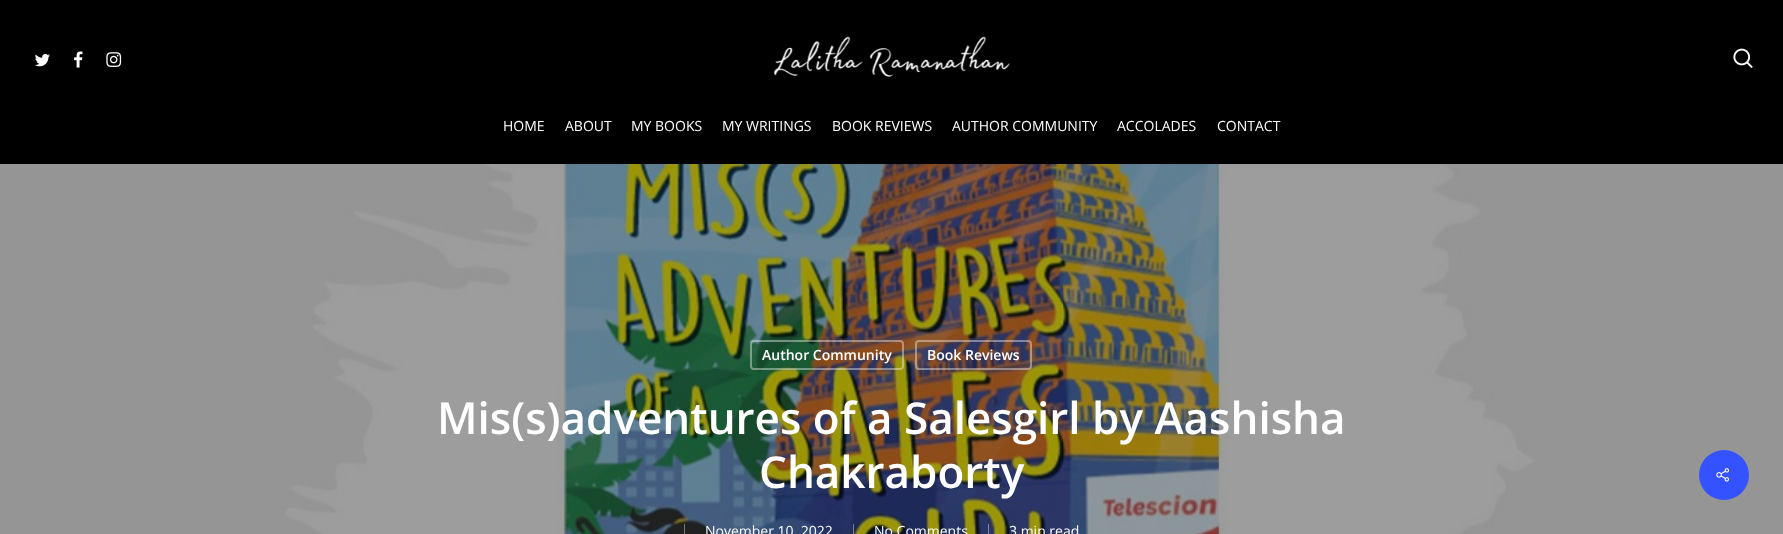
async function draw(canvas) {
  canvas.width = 1783
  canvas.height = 534
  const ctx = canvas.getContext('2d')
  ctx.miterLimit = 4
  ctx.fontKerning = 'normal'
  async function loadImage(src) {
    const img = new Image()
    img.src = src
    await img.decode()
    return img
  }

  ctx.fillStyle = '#000'
  ctx.fillRect(0, 0, 1783, 534)
  ctx.drawImage(await loadImage('image0.png'), 35, 54, 15, 13)
  ctx.drawImage(await loadImage('image1.png'), 74, 51, 9, 17)
  ctx.drawImage(await loadImage('image2.png'), 106, 52, 16, 15)
  ctx.drawImage(await loadImage('image3.png'), 773, 36, 237, 41)
  ctx.drawImage(await loadImage('image4.png'), 1733, 48, 20, 20)
  ctx.font = '14px Open Sans'
  ctx.fillStyle = '#fff'
  ctx.fillText('HOME', 503, 131)
  ctx.fillText('ABOUT', 565, 131)
  ctx.fillText('MY BOOKS', 631, 131)
  ctx.fillText('MY WRITINGS', 722, 131)
  ctx.fillText('BOOK REVIEWS', 832, 131)
  ctx.fillText('AUTHOR COMMUNITY', 952, 131)
  ctx.fillText('ACCOLADES', 1117, 131)
  ctx.fillText('CONTACT', 1217, 131)
  ctx.drawImage(await loadImage('image5.png'), 0, 164, 1783, 370)
  ctx.beginPath()
  ctx.roundRect(751, 341, 152, 28, 3)
  ctx.strokeStyle = '#ffffff66'
  ctx.lineWidth = 2
  ctx.stroke()
  ctx.font = '600 14px Open Sans'
  ctx.fillText('Author Community', 762, 360)
  ctx.beginPath()
  ctx.roundRect(916, 341, 115, 28, 3)
  ctx.stroke()
  ctx.fillText('Book Reviews', 927, 360)
  ctx.font = '600 44px Open Sans'
  ctx.fillText('Mis(s)adventures of a Salesgirl by Aashisha', 437, 434)
  ctx.fillText('Chakraborty', 759, 488)
  ctx.fillStyle = '#ffffff66'
  ctx.fillRect(684, 524, 1, 10)
  ctx.font = '14px Open Sans'
  ctx.fillStyle = '#fff'
  ctx.fillText('November 10, 2022', 705, 536)
  ctx.fillStyle = '#ffffff66'
  ctx.fillRect(853, 524, 1, 10)
  ctx.fillStyle = '#fff'
  ctx.fillText('No Comments', 874, 536)
  ctx.fillStyle = '#ffffff66'
  ctx.fillRect(988, 524, 1, 10)
  ctx.fillStyle = '#fff'
  ctx.fillText('3 min read', 1009, 536)
  ctx.fillStyle = '#3452ff'
  ctx.beginPath()
  ctx.arc(1724, 475, 25, 0, 2 * Math.PI)
  ctx.fill()
  ctx.drawImage(await loadImage('image6.png'), 1716, 468, 13, 14)
}

draw(document.querySelector('canvas'))
